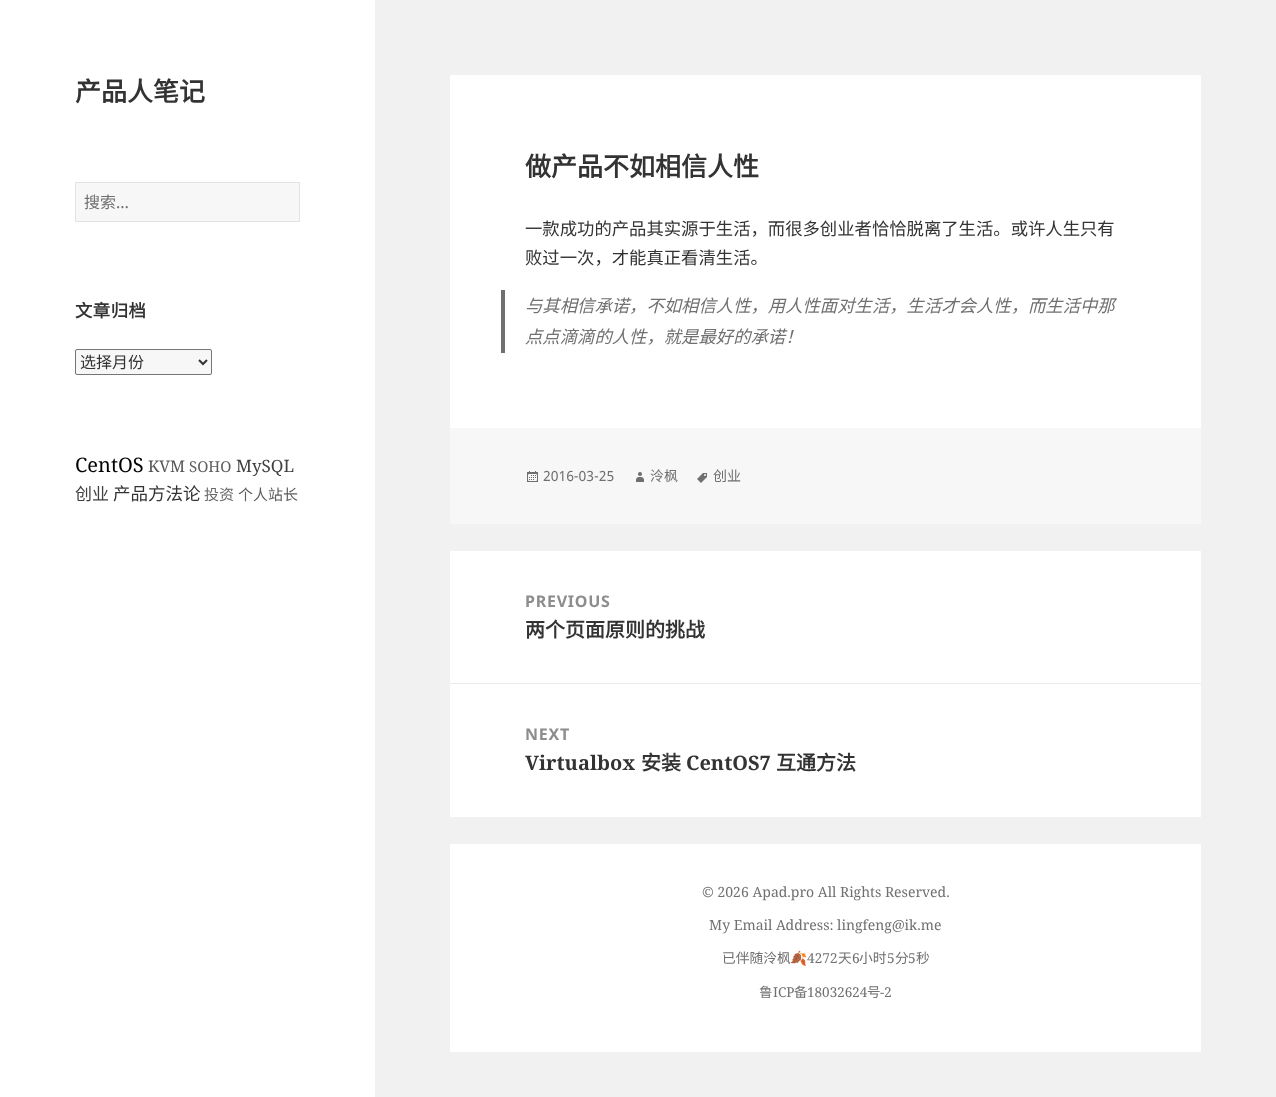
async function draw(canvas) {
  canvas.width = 1276
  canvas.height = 1097
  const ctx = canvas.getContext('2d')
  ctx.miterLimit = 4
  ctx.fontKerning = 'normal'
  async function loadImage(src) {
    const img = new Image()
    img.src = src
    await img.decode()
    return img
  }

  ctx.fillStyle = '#f1f1f1'
  ctx.fillRect(0, 0, 1276, 1097)
  ctx.fillStyle = '#fff'
  ctx.fillRect(0, 0, 375, 1097)
  ctx.font = 'bold 26px Noto Sans CJK SC'
  ctx.fillStyle = '#333'
  ctx.fillText('产品人笔记', 75, 101)
  ctx.fillStyle = '#f7f7f7'
  ctx.beginPath()
  ctx.rect(75.5, 182.5, 224, 39)
  ctx.fill()
  ctx.strokeStyle = '#e3e3e3'
  ctx.stroke()
  ctx.font = '16px Noto Sans CJK SC'
  ctx.fillStyle = '#707070'
  ctx.fillText('搜索', 84, 208)
  ctx.font = '16px Noto Sans'
  ctx.fillText('…', 116, 208)
  ctx.letterSpacing = '0.5px'
  ctx.font = 'bold 17.35px Noto Sans CJK SC'
  ctx.fillStyle = '#333'
  ctx.fillText('文章归档', 75, 317)
  ctx.fillStyle = '#f7f7f7'
  ctx.beginPath()
  ctx.roundRect(75.5, 349.5, 136, 25, 1.5)
  ctx.fill()
  ctx.strokeStyle = '#767676'
  ctx.stroke()
  ctx.beginPath()
  ctx.moveTo(199, 360)
  ctx.lineTo(203, 364)
  ctx.lineTo(207, 360)
  ctx.strokeStyle = '#333'
  ctx.lineWidth = 2
  ctx.stroke()
  ctx.letterSpacing = '0px'
  ctx.font = '16px Noto Sans CJK SC'
  ctx.fillStyle = '#333'
  ctx.fillText('选择月份', 80, 368)
  ctx.font = '20px Noto Serif'
  ctx.fillStyle = '#000'
  ctx.fillText('CentOS', 75, 472)
  ctx.font = '16px Noto Serif'
  ctx.fillStyle = '#545454'
  ctx.fillText('KVM', 148, 472)
  ctx.font = '15px Noto Serif'
  ctx.fillStyle = '#5e5e5e'
  ctx.fillText('SOHO', 189, 472)
  ctx.font = '17px Noto Serif'
  ctx.fillStyle = '#3f3f3f'
  ctx.fillText('MySQL', 236, 472)
  ctx.font = '17px Noto Sans CJK SC'
  ctx.fillText('创业', 75, 500)
  ctx.font = '17.5px Noto Sans CJK SC'
  ctx.fillStyle = '#333'
  ctx.fillText('产品方法论', 113, 500)
  ctx.font = '15px Noto Sans CJK SC'
  ctx.fillStyle = '#696969'
  ctx.fillText('投资', 204, 500)
  ctx.fillStyle = '#5e5e5e'
  ctx.fillText('个人站长', 238, 500)
  ctx.fillStyle = '#fff'
  ctx.fillRect(450, 75, 751, 353)
  ctx.font = 'bold 26px Noto Sans CJK SC'
  ctx.fillStyle = '#333'
  ctx.fillText('做产品不如相信人性', 525, 176)
  ctx.font = '17.35px Noto Sans CJK SC'
  ctx.fillText('一款成功的产品其实源于生活，而很多创业者恰恰脱离了生活。或许人生只有', 525, 235)
  ctx.fillText('败过一次，才能真正看清生活。', 525, 264)
  ctx.fillStyle = '#707070'
  ctx.fillRect(501, 290, 4, 63)
  ctx.font = 'italic 17.35px Noto Sans CJK SC'
  ctx.fillText('与其相信承诺，不如相信人性，用人性面对生活，生活才会人性，而生活中那', 525, 312)
  ctx.fillText('点点滴滴的人性，就是最好的承诺！', 525, 343)
  ctx.fillStyle = '#f7f7f7'
  ctx.fillRect(450, 428, 751, 96)
  ctx.drawImage(await loadImage('image0.png'), 527, 471, 11, 11)
  ctx.font = '14px Noto Sans'
  ctx.fillStyle = '#707070'
  ctx.fillText('2016-03-25', 543, 481)
  ctx.drawImage(await loadImage('image1.png'), 636, 472, 8, 10)
  ctx.font = '14px Noto Sans CJK SC'
  ctx.fillText('泠枫', 650, 481)
  ctx.drawImage(await loadImage('image2.png'), 697, 473, 10, 10)
  ctx.fillText('创业', 713, 481)
  ctx.fillStyle = '#fff'
  ctx.fillRect(450, 551, 751, 266)
  ctx.letterSpacing = '0.75px'
  ctx.font = 'bold 16px Noto Sans'
  ctx.fillStyle = '#8d8d8d'
  ctx.fillText('PREVIOUS', 525, 607)
  ctx.letterSpacing = '0px'
  ctx.font = 'bold 20px Noto Sans CJK SC'
  ctx.fillStyle = '#333'
  ctx.fillText('两个页面原则的挑战', 525, 637)
  ctx.fillStyle = '#ebebeb'
  ctx.fillRect(450, 683, 751, 1)
  ctx.letterSpacing = '0.75px'
  ctx.font = 'bold 16px Noto Sans'
  ctx.fillStyle = '#8d8d8d'
  ctx.fillText('NEXT', 525, 740)
  ctx.letterSpacing = '0px'
  ctx.font = 'bold 20px Noto Serif'
  ctx.fillStyle = '#333'
  ctx.fillText('Virtualbox', 525, 770)
  ctx.font = 'bold 20px Noto Sans CJK SC'
  ctx.fillText('安装', 641, 770)
  ctx.font = 'bold 20px Noto Serif'
  ctx.fillText('CentOS7', 686, 770)
  ctx.font = 'bold 20px Noto Sans CJK SC'
  ctx.fillText('互通方法', 776, 770)
  ctx.fillStyle = '#fff'
  ctx.fillRect(450, 844, 751, 208)
  ctx.font = '14px Noto Serif'
  ctx.fillStyle = '#707070'
  ctx.fillText('© 2026 Apad.pro All Rights Reserved.', 702, 897)
  ctx.fillText('My Email Address: lingfeng@ik.me', 709, 930)
  ctx.font = '13.75px Noto Sans CJK SC'
  ctx.fillText('已伴随泠枫', 722, 963)
  ctx.font = '13.75px Noto Color Emoji'
  ctx.fillText('🍂', 790, 963)
  ctx.font = '13.75px Noto Serif'
  ctx.fillText('4272', 807, 963)
  ctx.font = '13.75px Noto Sans CJK SC'
  ctx.fillText('天', 838, 963)
  ctx.font = '13.75px Noto Serif'
  ctx.fillText('6', 852, 963)
  ctx.font = '13.75px Noto Sans CJK SC'
  ctx.fillText('小时', 859, 963)
  ctx.font = '13.75px Noto Serif'
  ctx.fillText('5', 887, 963)
  ctx.font = '13.75px Noto Sans CJK SC'
  ctx.fillText('分', 895, 963)
  ctx.font = '13.75px Noto Serif'
  ctx.fillText('5', 908, 963)
  ctx.font = '13.75px Noto Sans CJK SC'
  ctx.fillText('秒', 916, 963)
  ctx.font = '13.5px Noto Sans CJK SC'
  ctx.fillText('鲁', 759, 997)
  ctx.font = '13.5px Noto Serif'
  ctx.fillText('ICP', 773, 997)
  ctx.font = '13.5px Noto Sans CJK SC'
  ctx.fillText('备', 794, 997)
  ctx.font = '13.5px Noto Serif'
  ctx.fillText('18032624', 807, 997)
  ctx.font = '13.5px Noto Sans CJK SC'
  ctx.fillText('号', 867, 997)
  ctx.font = '13.5px Noto Serif'
  ctx.fillText('-2', 880, 997)
}

draw(document.querySelector('canvas'))
